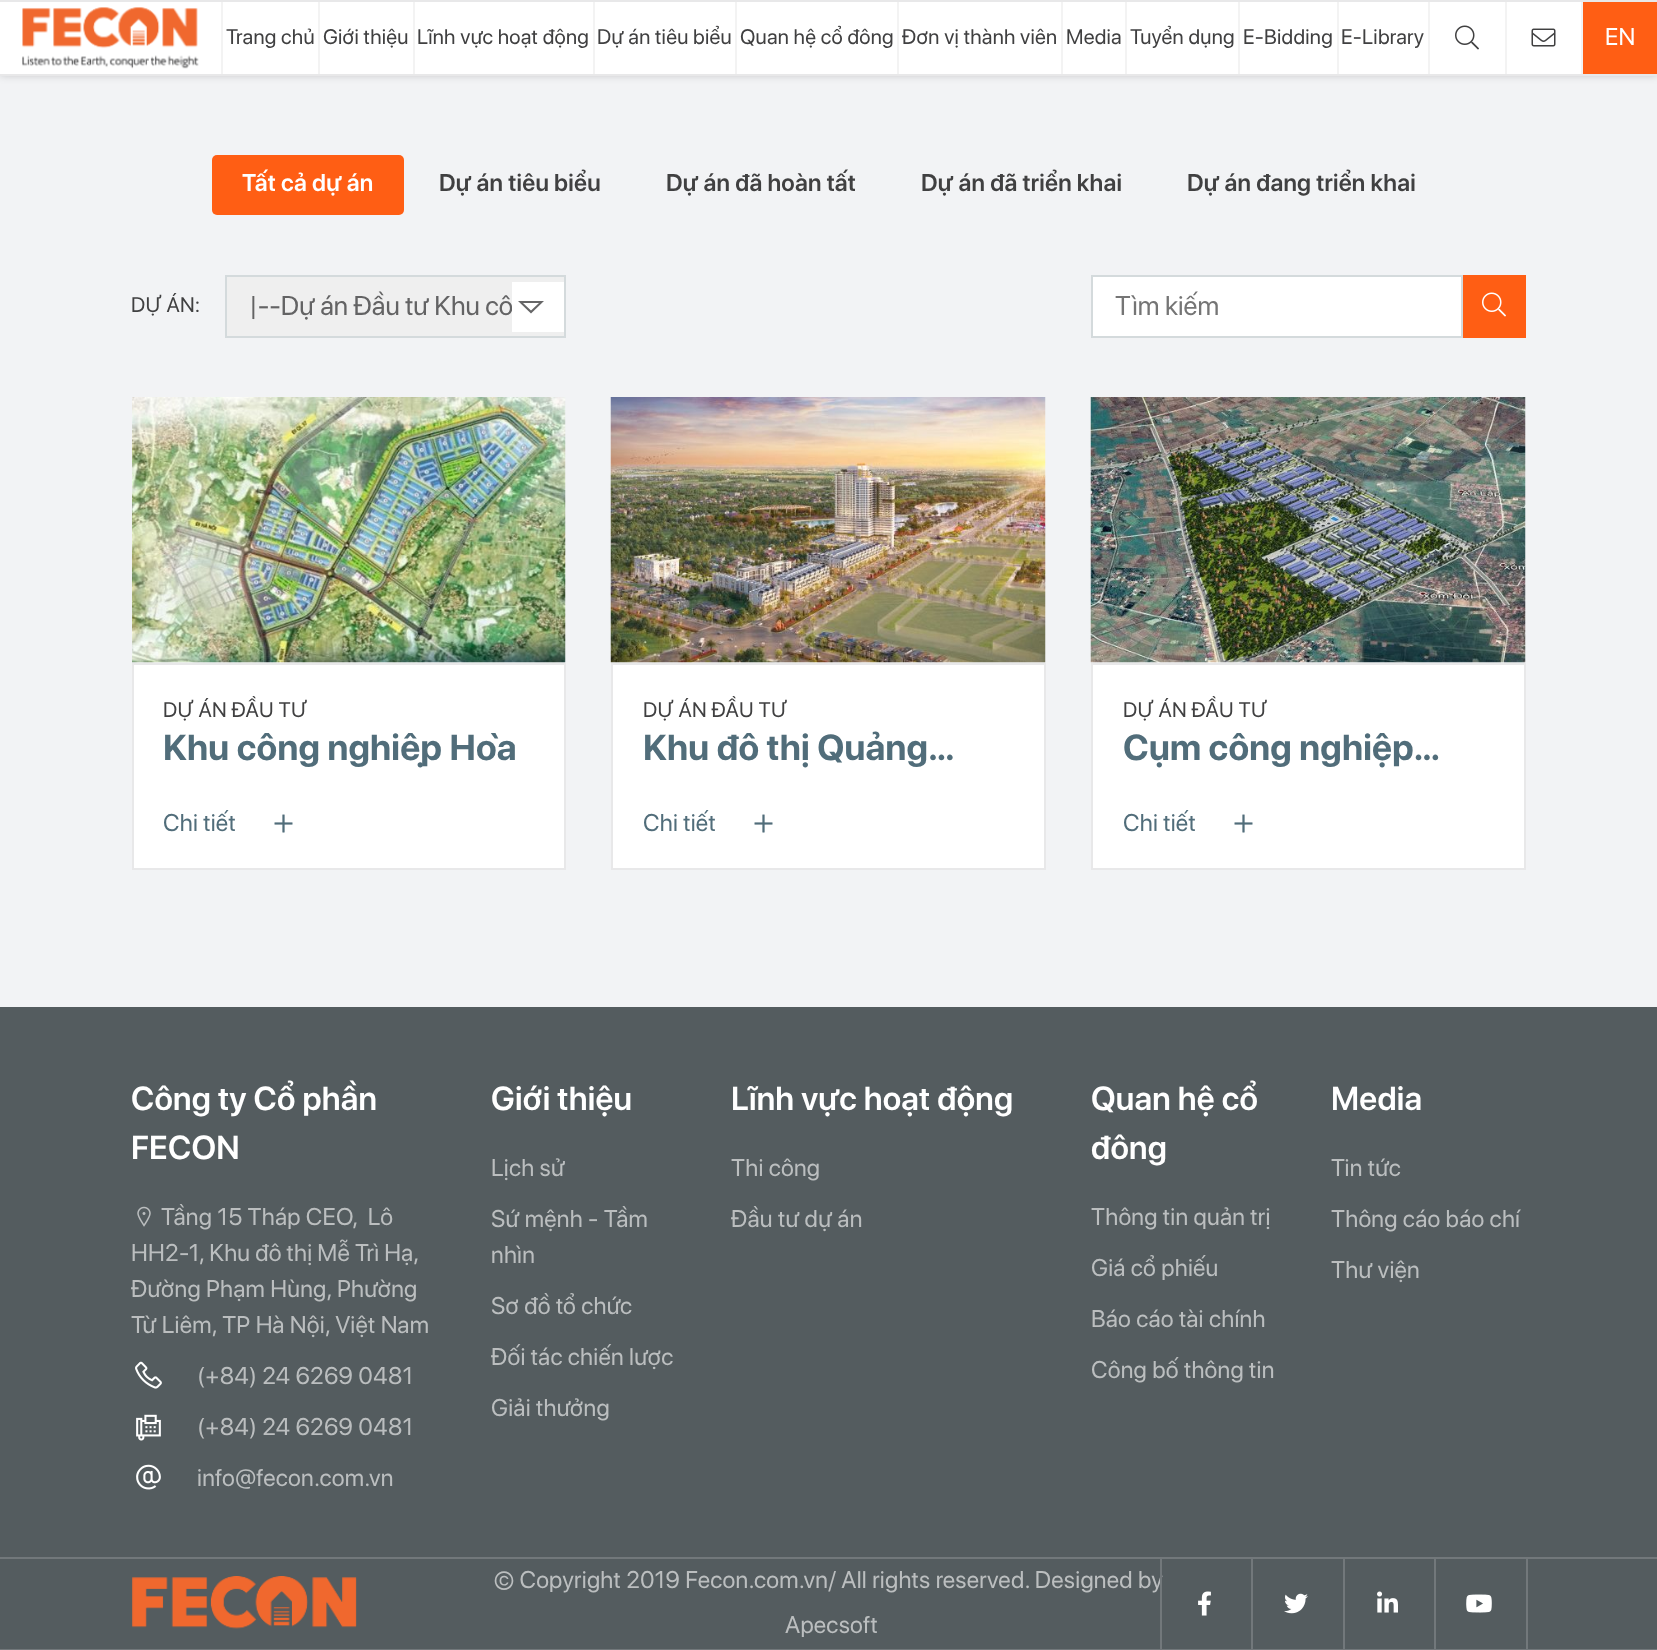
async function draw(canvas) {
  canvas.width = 1657
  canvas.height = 1650
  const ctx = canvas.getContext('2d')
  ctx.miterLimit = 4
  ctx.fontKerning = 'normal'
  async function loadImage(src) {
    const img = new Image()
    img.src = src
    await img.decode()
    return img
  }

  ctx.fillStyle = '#f2f3f5'
  ctx.fillRect(0, 0, 1657, 1650)
  ctx.fillStyle = '#00000033'
  ctx.filter = 'blur(4px)'
  ctx.beginPath()
  ctx.rect(0, 0, 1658, 75)
  ctx.fill()
  ctx.filter = 'none'
  ctx.fillStyle = '#fff'
  ctx.fillRect(0, 2, 1581, 72)
  ctx.fillStyle = '#e8e8e9'
  ctx.fillRect(0, 0, 1657, 2)
  ctx.fillRect(0, 74, 1657, 2)
  ctx.drawImage(await loadImage('image0.png'), 22, 7, 177, 62)
  ctx.fillStyle = '#f3f3f3'
  ctx.fillRect(221, 2, 2, 72)
  ctx.letterSpacing = '0.25px'
  ctx.font = '21px SF Pro Display'
  ctx.fillStyle = '#404041'
  ctx.fillText('Trang chủ', 226, 44)
  ctx.fillStyle = '#f3f3f3'
  ctx.fillRect(318, 2, 2, 72)
  ctx.fillStyle = '#404041'
  ctx.fillText('Giới thiệu', 323, 44)
  ctx.fillStyle = '#f3f3f3'
  ctx.fillRect(413, 2, 2, 72)
  ctx.fillStyle = '#404041'
  ctx.fillText('Lĩnh vực hoạt động', 417, 44)
  ctx.fillStyle = '#f3f3f3'
  ctx.fillRect(593, 2, 2, 72)
  ctx.fillStyle = '#404041'
  ctx.fillText('Dự án tiêu biểu', 597, 44)
  ctx.fillStyle = '#f3f3f3'
  ctx.fillRect(735, 2, 2, 72)
  ctx.fillStyle = '#404041'
  ctx.fillText('Quan hệ cổ đông', 740, 44)
  ctx.fillStyle = '#f3f3f3'
  ctx.fillRect(897, 2, 2, 72)
  ctx.fillStyle = '#404041'
  ctx.fillText('Đơn vị thành viên', 902, 44)
  ctx.fillStyle = '#f3f3f3'
  ctx.fillRect(1061, 2, 2, 72)
  ctx.fillStyle = '#404041'
  ctx.fillText('Media', 1066, 44)
  ctx.fillStyle = '#f3f3f3'
  ctx.fillRect(1125, 2, 2, 72)
  ctx.fillStyle = '#404041'
  ctx.fillText('Tuyển dụng', 1130, 44)
  ctx.fillStyle = '#f3f3f3'
  ctx.fillRect(1238, 2, 2, 72)
  ctx.fillStyle = '#404041'
  ctx.fillText('E-Bidding', 1243, 44)
  ctx.fillStyle = '#f3f3f3'
  ctx.fillRect(1337, 2, 2, 72)
  ctx.fillStyle = '#404041'
  ctx.fillText('E-Library', 1341, 44)
  ctx.fillStyle = '#f3f3f3'
  ctx.fillRect(1428, 2, 2, 72)
  ctx.drawImage(await loadImage('image1.png'), 1455, 25, 24, 25)
  ctx.fillRect(1505, 2, 2, 72)
  ctx.drawImage(await loadImage('image2.png'), 1531, 28, 25, 19)
  ctx.fillRect(1581, 2, 2, 72)
  ctx.fillStyle = '#ff5e14'
  ctx.fillRect(1583, 2, 74, 72)
  ctx.font = '24px SF Pro Display'
  ctx.fillStyle = '#fff'
  ctx.fillText('EN', 1605, 45)
  ctx.fillStyle = '#ff5e14'
  ctx.beginPath()
  ctx.roundRect(212, 155, 192, 60, 5)
  ctx.fill()
  ctx.font = '600 24px SF Pro Display'
  ctx.fillStyle = '#fff'
  ctx.fillText('Tất cả dự án', 242, 191)
  ctx.fillStyle = '#404041'
  ctx.fillText('Dự án tiêu biểu', 439, 191)
  ctx.fillText('Dự án đã hoàn tất', 666, 191)
  ctx.fillText('Dự án đã triển khai', 921, 191)
  ctx.fillText('Dự án đang triển khai', 1187, 191)
  ctx.font = '21px SF Pro Display'
  ctx.fillText('DỰ ÁN:', 131, 312)
  ctx.fillStyle = '#efefef'
  ctx.beginPath()
  ctx.rect(226, 276, 339, 61)
  ctx.fill()
  ctx.strokeStyle = '#d4dadc'
  ctx.lineWidth = 2
  ctx.stroke()
  ctx.letterSpacing = '0px'
  ctx.font = '27px SF Pro Display'
  ctx.fillStyle = '#636364'
  ctx.fillText('|--Dự án Đầu tư Khu cô', 249, 315)
  ctx.fillStyle = '#fff'
  ctx.fillRect(512, 282, 52, 50)
  ctx.fillStyle = '#666667'
  ctx.beginPath()
  ctx.moveTo(518, 301)
  ctx.lineTo(544, 301)
  ctx.lineTo(531, 313.5)
  ctx.closePath()
  ctx.moveTo(523, 303)
  ctx.lineTo(531, 310.5)
  ctx.lineTo(539, 303)
  ctx.closePath()
  ctx.fill()
  ctx.fillStyle = '#fff'
  ctx.beginPath()
  ctx.rect(1092, 276, 370, 61)
  ctx.fill()
  ctx.stroke()
  ctx.fillStyle = '#757575'
  ctx.fillText('Tìm kiếm', 1115, 315)
  ctx.fillStyle = '#ff5e14'
  ctx.fillRect(1463, 275, 63, 63)
  ctx.drawImage(await loadImage('image3.png'), 1482, 292, 24, 25)
  ctx.drawImage(await loadImage('image4.png'), 132, 397, 434, 266)
  ctx.fillStyle = '#fff'
  ctx.beginPath()
  ctx.rect(133, 664, 432, 205)
  ctx.fill()
  ctx.strokeStyle = '#e8e8e9'
  ctx.stroke()
  ctx.letterSpacing = '0.25px'
  ctx.font = '21px SF Pro Display'
  ctx.fillStyle = '#404041'
  ctx.fillText('DỰ ÁN ĐẦU TƯ', 163, 717)
  ctx.font = 'bold 36px SF Pro Display'
  ctx.fillStyle = '#516d7a'
  ctx.fillText('Khu công nghiệp Hòa', 163, 760)
  ctx.font = '24px SF Pro Display'
  ctx.fillText('Chi tiết', 163, 831)
  ctx.drawImage(await loadImage('image5.png'), 274, 814, 19, 19)
  ctx.drawImage(await loadImage('image6.png'), 610, 397, 436, 266)
  ctx.fillStyle = '#fff'
  ctx.beginPath()
  ctx.rect(612, 664, 433, 205)
  ctx.fill()
  ctx.stroke()
  ctx.font = '21px SF Pro Display'
  ctx.fillStyle = '#404041'
  ctx.fillText('DỰ ÁN ĐẦU TƯ', 643, 717)
  ctx.font = 'bold 36px SF Pro Display'
  ctx.fillStyle = '#516d7a'
  ctx.fillText('Khu đô thị Quảng…', 643, 760)
  ctx.font = '24px SF Pro Display'
  ctx.fillText('Chi tiết', 643, 831)
  ctx.drawImage(await loadImage('image5.png'), 754, 814, 19, 19)
  ctx.drawImage(await loadImage('image7.png'), 1090, 397, 436, 266)
  ctx.fillStyle = '#fff'
  ctx.beginPath()
  ctx.rect(1092, 664, 433, 205)
  ctx.fill()
  ctx.stroke()
  ctx.font = '21px SF Pro Display'
  ctx.fillStyle = '#404041'
  ctx.fillText('DỰ ÁN ĐẦU TƯ', 1123, 717)
  ctx.font = 'bold 36px SF Pro Display'
  ctx.fillStyle = '#516d7a'
  ctx.fillText('Cụm công nghiệp…', 1123, 760)
  ctx.font = '24px SF Pro Display'
  ctx.fillText('Chi tiết', 1123, 831)
  ctx.drawImage(await loadImage('image5.png'), 1234, 814, 19, 19)
  ctx.fillStyle = '#545c5f'
  ctx.fillRect(0, 1007, 1657, 642)
  ctx.font = '600 33px SF Pro Display'
  ctx.fillStyle = '#fff'
  ctx.fillText('Công ty Cổ phần', 131, 1110)
  ctx.fillText('FECON', 131, 1159)
  ctx.drawImage(await loadImage('image8.png'), 137, 1206, 14, 21)
  ctx.font = '24px SF Pro Display'
  ctx.fillStyle = '#bbbebf'
  ctx.fillText('Tầng 15 Tháp CEO,  Lô', 161, 1225)
  ctx.wordSpacing = '-0.25px'
  ctx.fillText('HH2-1, Khu đô thị Mễ Trì Hạ,', 131, 1261)
  ctx.wordSpacing = '0px'
  ctx.fillText('Đường Phạm Hùng, Phường', 131, 1297)
  ctx.fillText('Từ Liêm, TP Hà Nội, Việt Nam', 131, 1333)
  ctx.drawImage(await loadImage('image9.png'), 135, 1361, 27, 28)
  ctx.fillText('(+84) 24 6269 0481', 197, 1384)
  ctx.drawImage(await loadImage('image10.png'), 136, 1414, 25, 27)
  ctx.fillText('(+84) 24 6269 0481', 197, 1435)
  ctx.drawImage(await loadImage('image11.png'), 136, 1464, 25, 26)
  ctx.fillText('info@fecon.com.vn', 197, 1486)
  ctx.font = '600 33px SF Pro Display'
  ctx.fillStyle = '#fff'
  ctx.fillText('Giới thiệu', 491, 1110)
  ctx.font = '24px SF Pro Display'
  ctx.fillStyle = '#bbbebf'
  ctx.fillText('Lịch sử', 491, 1176)
  ctx.fillText('Sứ mệnh - Tầm', 491, 1227)
  ctx.fillText('nhìn', 491, 1263)
  ctx.fillText('Sơ đồ tổ chức', 491, 1314)
  ctx.fillText('Đối tác chiến lược', 491, 1365)
  ctx.fillText('Giải thưởng', 491, 1416)
  ctx.font = '600 33px SF Pro Display'
  ctx.fillStyle = '#fff'
  ctx.fillText('Lĩnh vực hoạt động', 731, 1110)
  ctx.font = '24px SF Pro Display'
  ctx.fillStyle = '#bbbebf'
  ctx.fillText('Thi công', 731, 1176)
  ctx.fillText('Đầu tư dự án', 731, 1227)
  ctx.font = '600 33px SF Pro Display'
  ctx.fillStyle = '#fff'
  ctx.fillText('Quan hệ cổ', 1091, 1110)
  ctx.fillText('đông', 1091, 1159)
  ctx.font = '24px SF Pro Display'
  ctx.fillStyle = '#bbbebf'
  ctx.fillText('Thông tin quản trị', 1091, 1225)
  ctx.fillText('Giá cổ phiếu', 1091, 1276)
  ctx.fillText('Báo cáo tài chính', 1091, 1327)
  ctx.fillText('Công bố thông tin', 1091, 1378)
  ctx.font = '600 33px SF Pro Display'
  ctx.fillStyle = '#fff'
  ctx.fillText('Media', 1331, 1110)
  ctx.font = '24px SF Pro Display'
  ctx.fillStyle = '#bbbebf'
  ctx.fillText('Tin tức', 1331, 1176)
  ctx.fillText('Thông cáo báo chí', 1331, 1227)
  ctx.fillText('Thư viện', 1331, 1278)
  ctx.fillStyle = '#72787b'
  ctx.fillRect(0, 1557, 1657, 2)
  ctx.fillRect(0, 1649, 1657, 1)
  ctx.drawImage(await loadImage('image12.png'), 132, 1576, 225, 53)
  ctx.fillStyle = '#bbbebf'
  ctx.fillText('© Copyright 2019 Fecon.com.vn/ All rights reserved. Designed by', 494, 1588)
  ctx.fillText('Apecsoft', 785, 1633)
  ctx.fillStyle = '#72787b'
  ctx.fillRect(1160, 1559, 2, 90)
  ctx.drawImage(await loadImage('image13.png'), 1198, 1591, 13, 25)
  ctx.fillRect(1251, 1559, 2, 90)
  ctx.drawImage(await loadImage('image14.png'), 1284, 1593, 24, 21)
  ctx.fillRect(1343, 1559, 2, 90)
  ctx.drawImage(await loadImage('image15.png'), 1377, 1591, 21, 22)
  ctx.fillRect(1526, 1559, 2, 90)
  ctx.fillRect(1434, 1559, 2, 90)
  ctx.drawImage(await loadImage('image16.png'), 1466, 1594, 26, 19)
}

draw(document.querySelector('canvas'))
